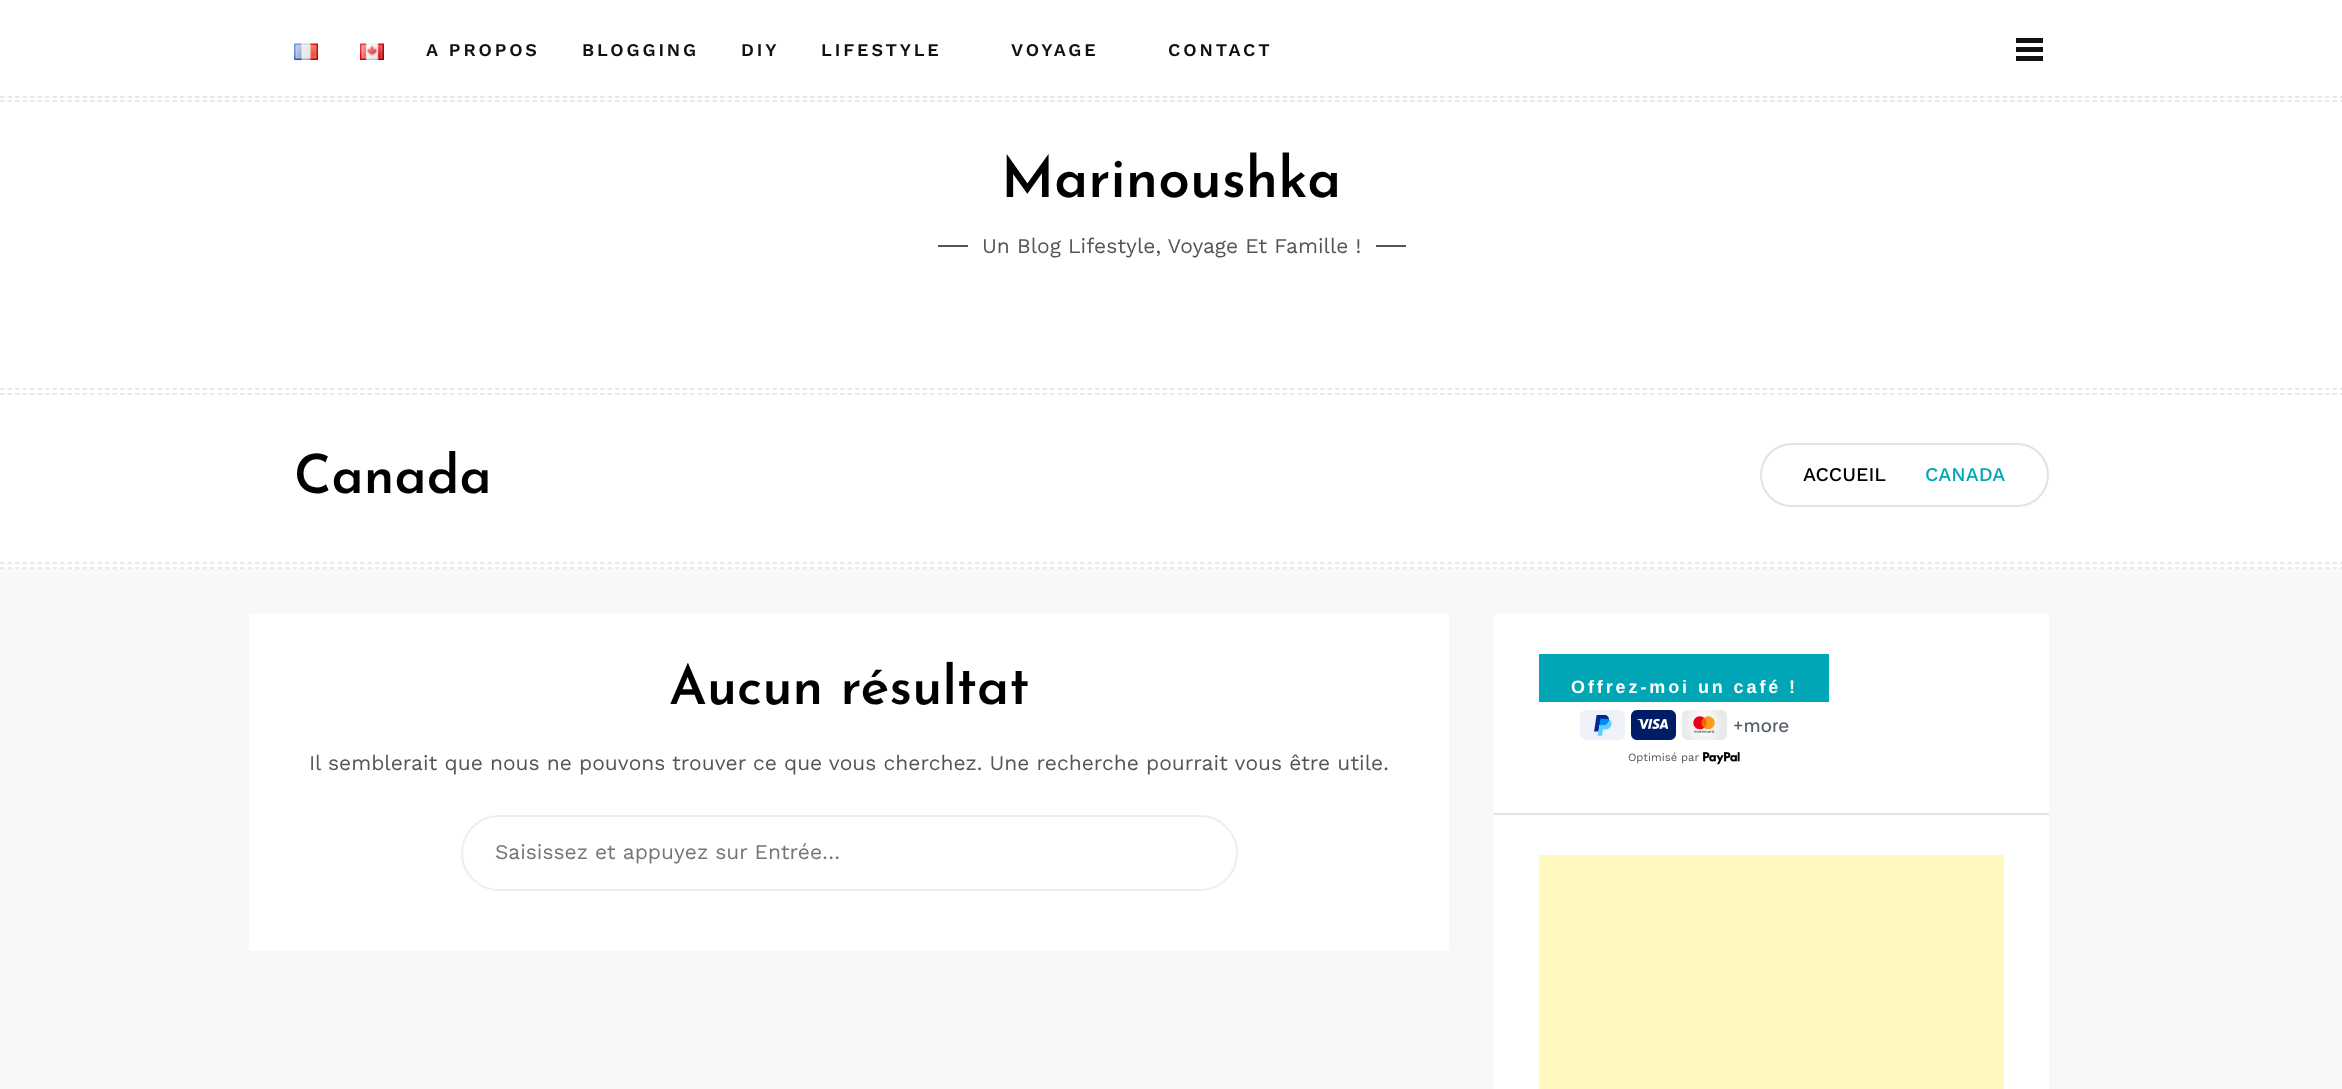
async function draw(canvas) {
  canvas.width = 2342
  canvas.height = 1089
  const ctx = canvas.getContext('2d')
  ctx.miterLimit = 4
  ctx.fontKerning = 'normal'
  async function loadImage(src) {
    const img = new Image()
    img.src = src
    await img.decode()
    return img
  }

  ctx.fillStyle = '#f8f8f8'
  ctx.fillRect(0, 0, 2342, 1089)
  ctx.fillStyle = '#fff'
  ctx.fillRect(0, 0, 2342, 569)
  ctx.beginPath()
  ctx.moveTo(0, 101)
  ctx.lineTo(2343, 101)
  ctx.strokeStyle = '#e2e2e2'
  ctx.lineWidth = 1.5
  ctx.setLineDash([4.5, 3])
  ctx.stroke()
  ctx.drawImage(await loadImage('image0.png'), 294, 43, 24, 17)
  ctx.drawImage(await loadImage('image1.png'), 360, 43, 24, 17)
  ctx.letterSpacing = '2.9px'
  ctx.font = '600 18px Work Sans'
  ctx.fillStyle = '#111'
  ctx.fillText('A PROPOS', 426, 56)
  ctx.fillText('BLOGGING', 582, 56)
  ctx.fillText('DIY', 741, 56)
  ctx.fillText('LIFESTYLE', 821, 56)
  ctx.fillText('VOYAGE', 1011, 56)
  ctx.fillText('CONTACT', 1168, 56)
  ctx.fillRect(2016, 38, 27, 5)
  ctx.fillRect(2016, 47, 27, 5)
  ctx.fillRect(2016, 56, 27, 5)
  ctx.beginPath()
  ctx.moveTo(0, 97)
  ctx.lineTo(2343, 97)
  ctx.stroke()
  ctx.beginPath()
  ctx.moveTo(0, 394)
  ctx.lineTo(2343, 394)
  ctx.stroke()
  ctx.letterSpacing = '0px'
  ctx.font = '600 57px Josefin Sans'
  ctx.fillStyle = '#000'
  ctx.fillText('Marinoushka', 1001, 197)
  ctx.fillStyle = '#555'
  ctx.fillRect(938, 245, 30, 2)
  ctx.font = '21px Work Sans'
  ctx.fillText('Un Blog Lifestyle, Voyage Et Famille !', 982, 253)
  ctx.fillRect(1376, 245, 30, 2)
  ctx.beginPath()
  ctx.moveTo(0, 389)
  ctx.lineTo(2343, 389)
  ctx.stroke()
  ctx.beginPath()
  ctx.moveTo(0, 568)
  ctx.lineTo(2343, 568)
  ctx.stroke()
  ctx.font = '600 54px Josefin Sans'
  ctx.fillStyle = '#000'
  ctx.fillText('Canada', 294, 493)
  ctx.beginPath()
  ctx.roundRect(1761, 444, 287, 62, 31)
  ctx.lineWidth = 2
  ctx.setLineDash([])
  ctx.stroke()
  ctx.font = '500 19.5px Work Sans'
  ctx.fillText('ACCUEIL', 1803, 481)
  ctx.fillStyle = '#00a6b6'
  ctx.fillText('CANADA', 1925, 481)
  ctx.beginPath()
  ctx.moveTo(0, 563)
  ctx.lineTo(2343, 563)
  ctx.lineWidth = 1.5
  ctx.setLineDash([4.5, 3])
  ctx.stroke()
  ctx.fillStyle = '#fff'
  ctx.fillRect(249, 614, 1200, 337)
  ctx.font = '600 54px Josefin Sans'
  ctx.fillStyle = '#000'
  ctx.fillText('Aucun résultat', 669, 704)
  ctx.font = '21px Work Sans'
  ctx.fillStyle = '#555'
  ctx.fillText('Il semblerait que nous ne pouvons trouver ce que vous cherchez. Une recherche pourrait vous être utile.', 309, 770)
  ctx.beginPath()
  ctx.roundRect(462, 816, 775, 74, 37)
  ctx.strokeStyle = '#eee'
  ctx.lineWidth = 2
  ctx.setLineDash([])
  ctx.stroke()
  ctx.fillStyle = '#757575'
  ctx.fillText('Saisissez et appuyez sur Entrée…', 495, 859)
  ctx.fillStyle = '#fff'
  ctx.fillRect(1494, 614, 555, 199)
  ctx.fillStyle = '#e2e2e2'
  ctx.fillRect(1494, 813, 555, 2)
  ctx.fillStyle = '#00a6b6'
  ctx.fillRect(1539, 654, 290, 48)
  ctx.letterSpacing = '2.9px'
  ctx.font = 'bold 18px Liberation Sans'
  ctx.fillStyle = '#fff'
  ctx.fillText('Offrez-moi un café !', 1571, 693)
  ctx.drawImage(await loadImage('image2.png'), 1580, 710, 209, 30)
  ctx.letterSpacing = '0px'
  ctx.font = '11.25px Work Sans'
  ctx.fillStyle = '#555'
  ctx.fillText('Optimisé par', 1628, 761)
  ctx.drawImage(await loadImage('image3.png'), 1703, 752, 37, 13)
  ctx.fillStyle = '#fff'
  ctx.fillRect(1494, 815, 555, 274)
  ctx.fillStyle = '#fff9c0'
  ctx.fillRect(1539, 855, 465, 234)
}

draw(document.querySelector('canvas'))
